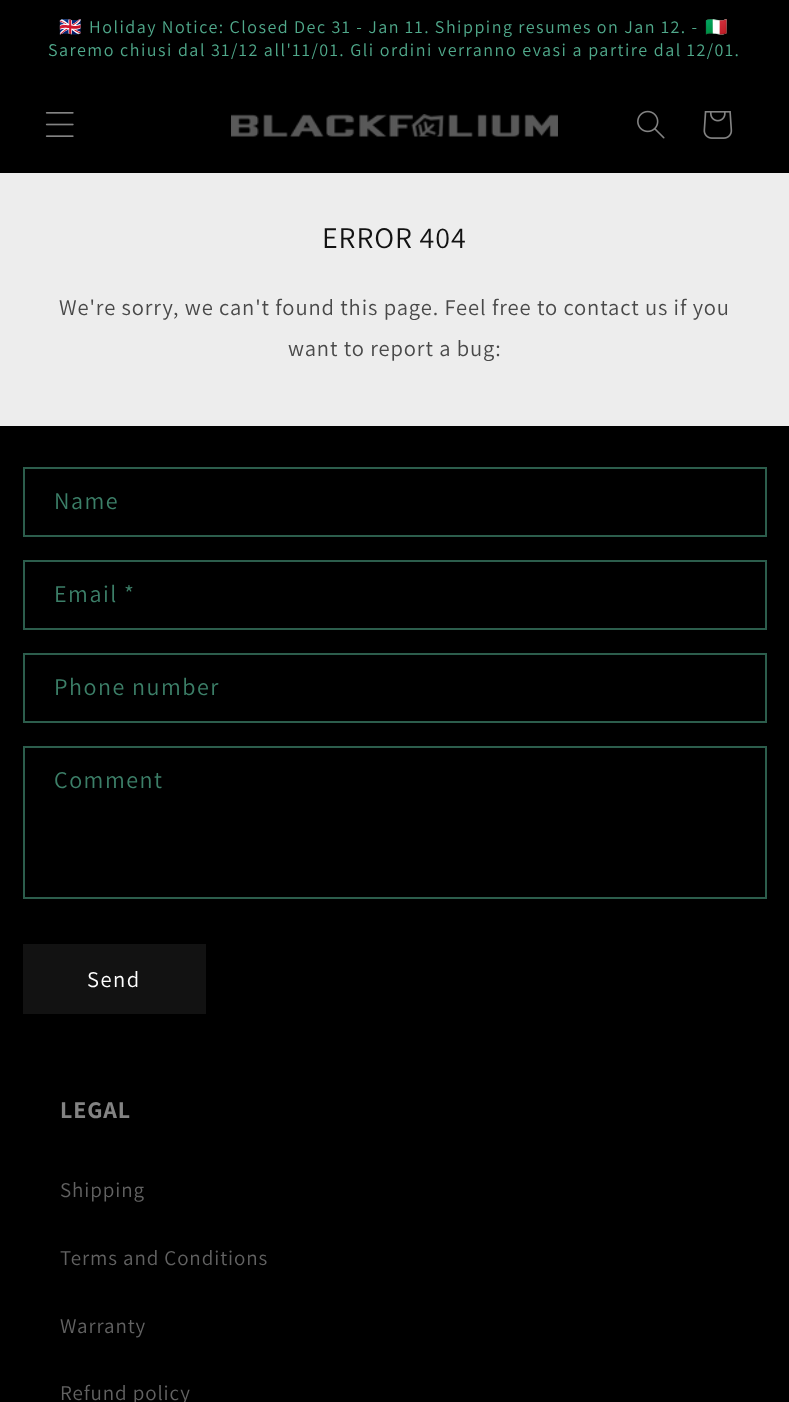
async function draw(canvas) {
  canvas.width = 789
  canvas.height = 1402
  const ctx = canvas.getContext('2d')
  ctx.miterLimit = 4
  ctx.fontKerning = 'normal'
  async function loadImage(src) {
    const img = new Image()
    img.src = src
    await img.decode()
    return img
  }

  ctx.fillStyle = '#000'
  ctx.fillRect(0, 0, 789, 1402)
  ctx.letterSpacing = '1.5px'
  ctx.font = '18px Noto Color Emoji'
  ctx.fillStyle = '#50a98b'
  ctx.fillText('🇬🇧', 59, 33)
  ctx.wordSpacing = '-0.25px'
  ctx.font = '18px Assistant'
  ctx.fillText('Holiday Notice: Closed Dec 31 - Jan 11. Shipping resumes on Jan 12. -', 89, 33)
  ctx.wordSpacing = '0px'
  ctx.font = '18px Noto Color Emoji'
  ctx.fillText('🇮🇹', 705, 33)
  ctx.font = '18px Assistant'
  ctx.fillText('Saremo chiusi dal 31/12 all\'11/01. Gli ordini verranno evasi a partire dal 12/01.', 48, 56)
  ctx.drawImage(await loadImage('image0.png'), 45, 112, 29, 25)
  ctx.drawImage(await loadImage('image1.png'), 231, 114, 327, 23)
  ctx.drawImage(await loadImage('image2.png'), 637, 110, 28, 29)
  ctx.drawImage(await loadImage('image3.png'), 703, 111, 30, 28)
  ctx.fillStyle = '#ededed'
  ctx.fillRect(0, 173, 789, 253)
  ctx.letterSpacing = '0.9px'
  ctx.font = '30px Assistant'
  ctx.fillStyle = '#121212'
  ctx.fillText('ERROR 404', 322, 248)
  ctx.font = '22.5px Assistant'
  ctx.fillStyle = '#494949'
  ctx.fillText('We\'re sorry, we can\'t found this page. Feel free to contact us if you', 59, 315)
  ctx.fillText('want to report a bug:', 288, 356)
  ctx.strokeStyle = '#2c5d4c'
  ctx.lineWidth = 2
  ctx.strokeRect(24, 468, 742, 68)
  ctx.letterSpacing = '1.5px'
  ctx.font = '24px Assistant'
  ctx.fillStyle = '#3c7f68'
  ctx.fillText('Name', 54, 509)
  ctx.strokeRect(24, 561, 742, 68)
  ctx.fillText('Email *', 54, 602)
  ctx.strokeRect(24, 654, 742, 68)
  ctx.fillText('Phone number', 54, 695)
  ctx.strokeRect(24, 747, 742, 151)
  ctx.fillText('Comment', 54, 788)
  ctx.fillStyle = '#121212'
  ctx.fillRect(23, 944, 183, 70)
  ctx.font = '22.5px Assistant'
  ctx.fillStyle = '#fff'
  ctx.fillText('Send', 87, 987)
  ctx.letterSpacing = '0.9px'
  ctx.font = 'bold 24px Assistant'
  ctx.fillStyle = '#838383'
  ctx.fillText('LEGAL', 60, 1118)
  ctx.font = '21px Assistant'
  ctx.fillStyle = '#626262'
  ctx.fillText('Shipping', 60, 1197)
  ctx.fillText('Terms and Conditions', 60, 1265)
  ctx.fillText('Warranty', 60, 1333)
  ctx.fillText('Refund policy', 60, 1400)
}

draw(document.querySelector('canvas'))
